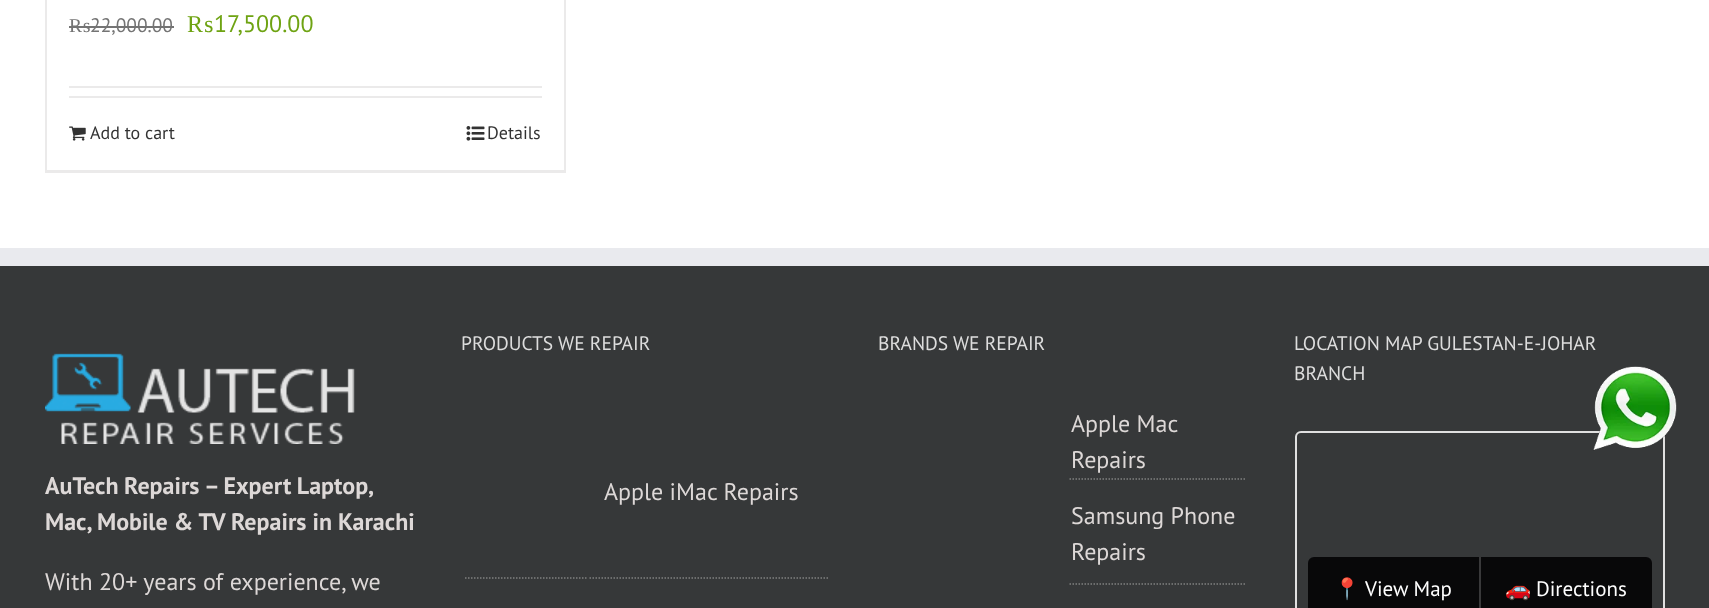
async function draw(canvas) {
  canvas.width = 1709
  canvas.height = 608
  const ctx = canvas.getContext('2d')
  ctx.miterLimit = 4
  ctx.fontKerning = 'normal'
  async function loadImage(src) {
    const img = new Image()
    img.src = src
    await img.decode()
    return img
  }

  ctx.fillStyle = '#fff'
  ctx.fillRect(0, 0, 1709, 608)
  ctx.fillStyle = '#ebeaea'
  ctx.fillRect(564, 0, 2, 173)
  ctx.fillRect(45, 170, 521, 3)
  ctx.fillRect(45, 0, 2, 173)
  ctx.font = '19.5px Liberation Serif'
  ctx.fillStyle = '#747474'
  ctx.fillText('₨', 69, 32)
  ctx.fillRect(69, 26, 21, 2)
  ctx.font = '19.5px PT Sans'
  ctx.fillText('22,000.00', 90, 32)
  ctx.fillRect(90, 26, 84, 2)
  ctx.font = '24px Liberation Serif'
  ctx.fillStyle = '#6ea312'
  ctx.fillText('₨', 187, 32)
  ctx.font = '24px PT Sans'
  ctx.fillText('17,500.00', 214, 32)
  ctx.fillStyle = '#ebeaea'
  ctx.fillRect(69, 86, 473, 2)
  ctx.fillRect(69, 96, 473, 2)
  ctx.drawImage(await loadImage('image0.png'), 69, 126, 17, 15)
  ctx.font = '18px PT Sans'
  ctx.fillStyle = '#333'
  ctx.fillText('Add to cart', 90, 139)
  ctx.drawImage(await loadImage('image1.png'), 466, 126, 19, 15)
  ctx.fillText('Details', 487, 139)
  ctx.fillStyle = '#363839'
  ctx.fillRect(0, 266, 1709, 342)
  ctx.fillStyle = '#e9eaee'
  ctx.fillRect(0, 248, 1709, 18)
  ctx.drawImage(await loadImage('image2.png'), 45, 353, 310, 91)
  ctx.wordSpacing = '-0.5px'
  ctx.font = 'bold 24px PT Sans'
  ctx.fillStyle = '#ddd8d7'
  ctx.fillText('AuTech Repairs – Expert Laptop,', 45, 494)
  ctx.wordSpacing = '0px'
  ctx.fillText('Mac, Mobile & TV Repairs in Karachi', 45, 530)
  ctx.font = '24px PT Sans'
  ctx.fillText('With 20+ years of experience, we', 45, 590)
  ctx.font = '19.5px PT Sans'
  ctx.fillStyle = '#ddd'
  ctx.fillText('PRODUCTS WE REPAIR', 461, 350)
  ctx.beginPath()
  ctx.moveTo(589.5, 578)
  ctx.lineTo(829.5, 578)
  ctx.strokeStyle = '#808080'
  ctx.lineWidth = 1.5
  ctx.setLineDash([1.5, 1.5])
  ctx.stroke()
  ctx.font = '24px PT Sans'
  ctx.fillStyle = '#ddd8d7'
  ctx.fillText('Apple iMac Repairs', 604, 500)
  ctx.beginPath()
  ctx.moveTo(465, 578)
  ctx.lineTo(586.5, 578)
  ctx.stroke()
  ctx.font = '19.5px PT Sans'
  ctx.fillStyle = '#ddd'
  ctx.fillText('BRANDS WE REPAIR', 878, 350)
  ctx.beginPath()
  ctx.moveTo(1069.5, 479)
  ctx.lineTo(1246.5, 479)
  ctx.stroke()
  ctx.font = '24px PT Sans'
  ctx.fillStyle = '#ddd8d7'
  ctx.fillText('Apple Mac', 1071, 432)
  ctx.fillText('Repairs', 1071, 468)
  ctx.beginPath()
  ctx.moveTo(1069.5, 584)
  ctx.lineTo(1246.5, 584)
  ctx.stroke()
  ctx.fillText('Samsung Phone', 1071, 524)
  ctx.fillText('Repairs', 1071, 560)
  ctx.beginPath()
  ctx.roundRect(1296, 432, 368, 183, 5)
  ctx.strokeStyle = '#e0e0e0'
  ctx.lineWidth = 2
  ctx.setLineDash([])
  ctx.stroke()
  ctx.drawImage(await loadImage('image3.png'), 1593, 366, 84, 85)
  ctx.font = '19.5px PT Sans'
  ctx.fillStyle = '#ddd'
  ctx.fillText('LOCATION MAP GULESTAN-E-JOHAR', 1294, 350)
  ctx.fillText('BRANCH', 1294, 380)
  ctx.fillStyle = '#080809'
  ctx.beginPath()
  ctx.roundRect(1308, 557, 344, 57, 6)
  ctx.fill()
  ctx.fillStyle = '#39393a'
  ctx.fillRect(1479, 557, 2, 51)
  ctx.font = '21px Noto Color Emoji'
  ctx.fillStyle = '#fff'
  ctx.fillText('📍', 1334, 596)
  ctx.font = '21px PT Sans'
  ctx.fillText('View Map', 1365, 596)
  ctx.font = '21px Noto Color Emoji'
  ctx.fillText('🚗', 1505, 596)
  ctx.font = '21px PT Sans'
  ctx.fillText('Directions', 1536, 596)
}

draw(document.querySelector('canvas'))
